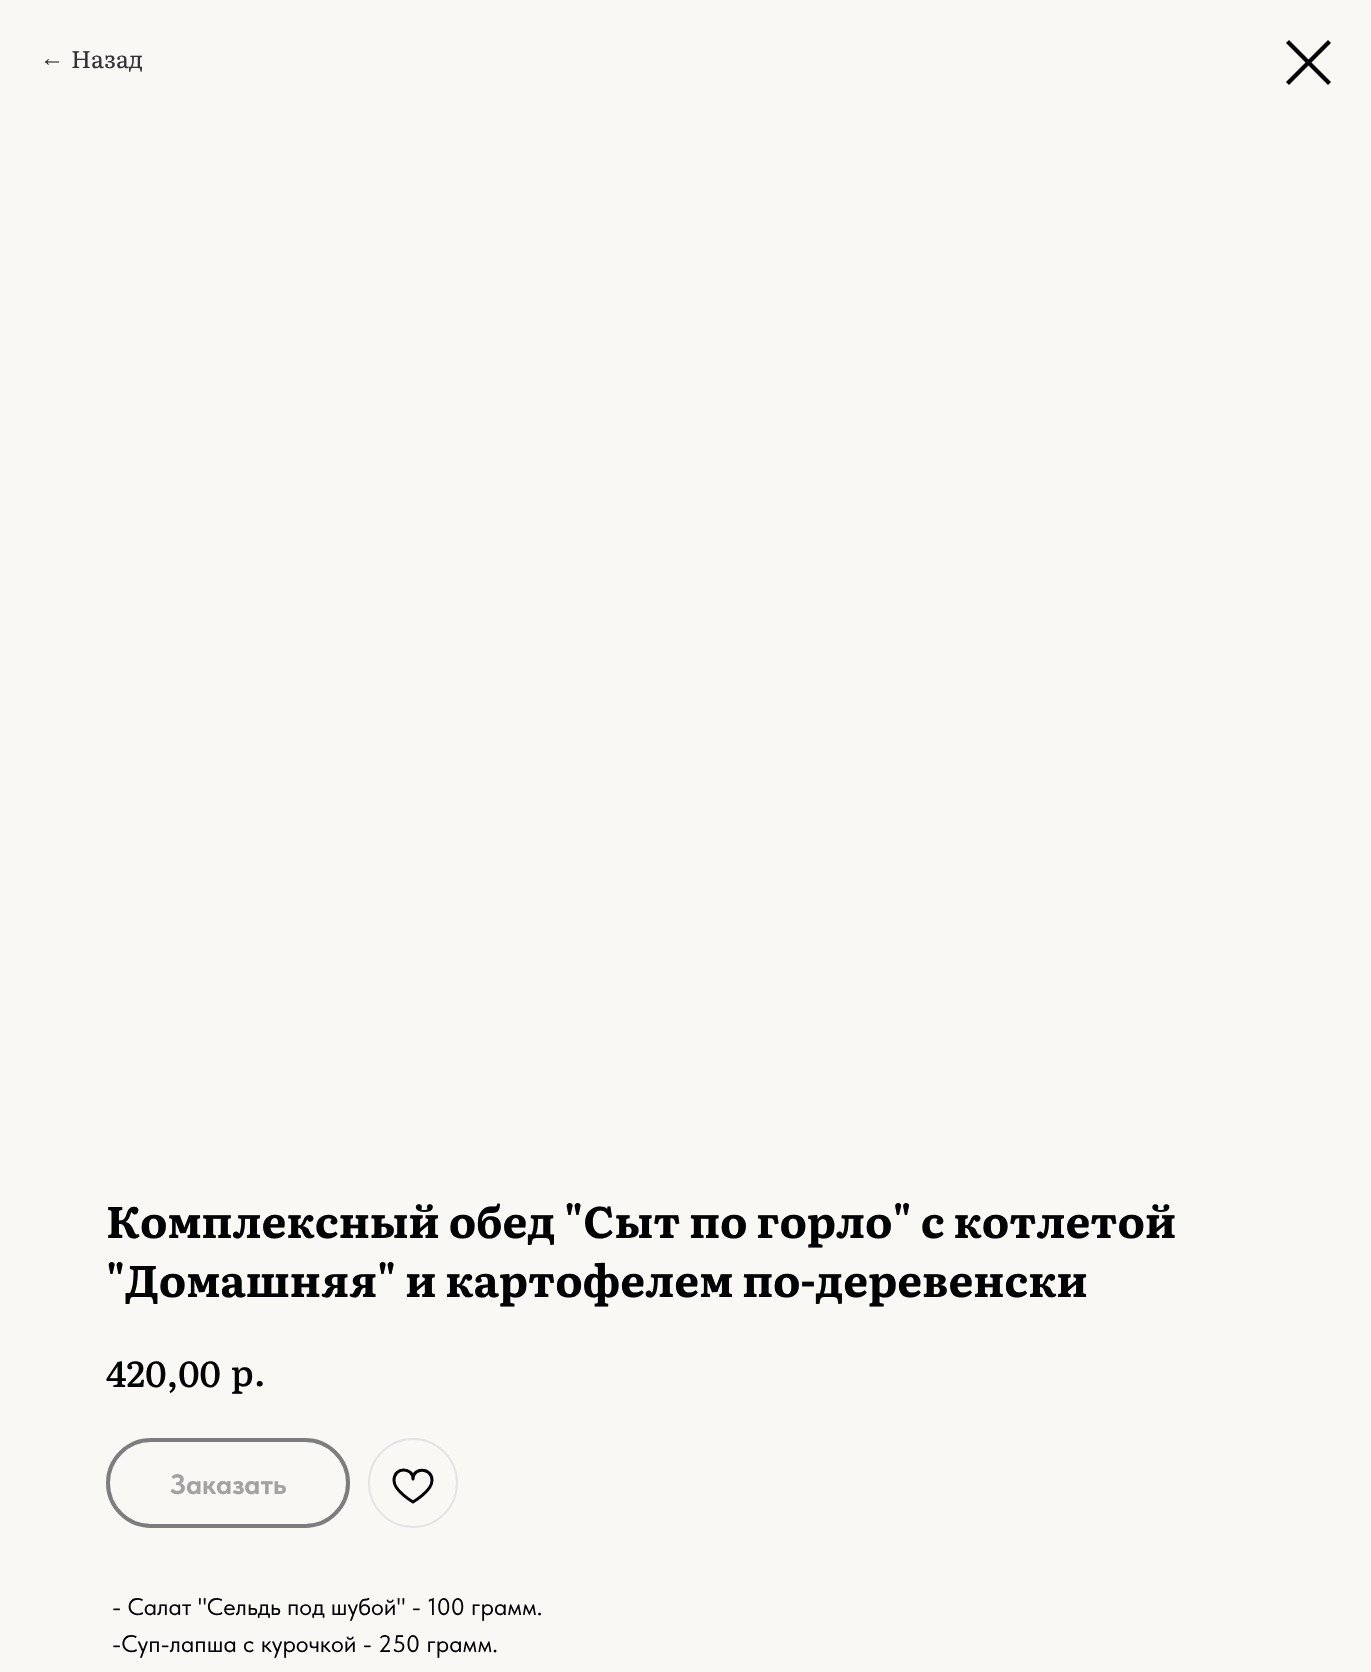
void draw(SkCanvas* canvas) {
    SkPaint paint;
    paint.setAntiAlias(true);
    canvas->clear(0xFFFAF8F5);
    SkFont font1(fontMgr->matchFamilyStyle("Liberation Sans", SkFontStyle::Normal()), 24);
    font1.setSubpixel(true);
    paint.setColor(0xFF343334);
    canvas->drawString("←", 40, 66, font1, paint);
    SkFont font2(fontMgr->matchFamilyStyle("Literata", SkFontStyle::Normal()), 24);
    font2.setSubpixel(true);
    canvas->drawString("Назад", 71, 68, font2, paint);
    paint.setColor(0xFF020204);
    canvas->drawPath(SkPathBuilder(SkPathFillType::kEvenOdd).moveTo(1286, 43).lineTo(1289, 40).lineTo(1331, 82).lineTo(1328, 85).close().detach(), paint);
    canvas->drawPath(SkPathBuilder(SkPathFillType::kEvenOdd).moveTo(1328, 40).lineTo(1331, 43).lineTo(1289, 85).lineTo(1286, 82).close().detach(), paint);
    SkFont font3(fontMgr->matchFamilyStyle("Literata", SkFontStyle::Bold()), 44);
    font3.setSubpixel(true);
    canvas->drawString("Комплексный обед \"Сыт по горло\" с котлетой", 106, 1238, font3, paint);
    canvas->drawString("\"Домашняя\" и картофелем по-деревенски", 106, 1297, font3, paint);
    SkFont font4(fontMgr->matchFamilyStyle("Literata", SkFontStyle(500, SkFontStyle::kNormal_Width, SkFontStyle::kUpright_Slant)), 36);
    font4.setSubpixel(true);
    canvas->drawString("420,00", 106, 1387, font4, paint);
    canvas->drawString("р.", 231, 1386, font4, paint);
    paint.setStyle(SkPaint::kStroke_Style);
    paint.setStrokeWidth(4);
    paint.setColor(0xFF7E7D7D);
    canvas->drawRoundRect(SkRect::MakeXYWH(108, 1440, 240, 86), 43, 43, paint);
    SkFont font5(fontMgr->matchFamilyStyle("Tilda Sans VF", SkFontStyle::Bold()), 28);
    font5.setSubpixel(true);
    paint.setStyle(SkPaint::kFill_Style);
    paint.setColor(0xFFA3A2A1);
    canvas->drawString("Заказать", 170, 1494, font5, paint);
    paint.setStyle(SkPaint::kStroke_Style);
    paint.setStrokeWidth(2);
    paint.setColor(0xFFE4E4E4);
    canvas->drawCircle(413, 1483, 44, paint);
    paint.setStrokeWidth(3);
    paint.setStrokeJoin(SkPaint::kRound_Join);
    paint.setColor(0xFF000000);
    canvas->drawPath(SkPathBuilder().moveTo(432, 1480.5f).cubicTo(432, 1491, 413, 1502, 413, 1502).cubicTo(413, 1502, 394, 1491, 394, 1480.5f).cubicTo(394, 1466.5f, 413, 1467, 413, 1479).cubicTo(413, 1467, 432, 1467, 432, 1480.5f).close().detach(), paint);
    SkFont font6(fontMgr->matchFamilyStyle("Tilda Sans VF", SkFontStyle::Normal()), 24);
    font6.setSubpixel(true);
    paint.setStyle(SkPaint::kFill_Style);
    paint.setColor(0xFF020204);
    canvas->drawString("- Салат \"Сельдь под шубой\" - 100 грамм.", 112, 1615, font6, paint);
    canvas->drawString("-Суп-лапша с курочкой - 250 грамм.", 112, 1652, font6, paint);
}
